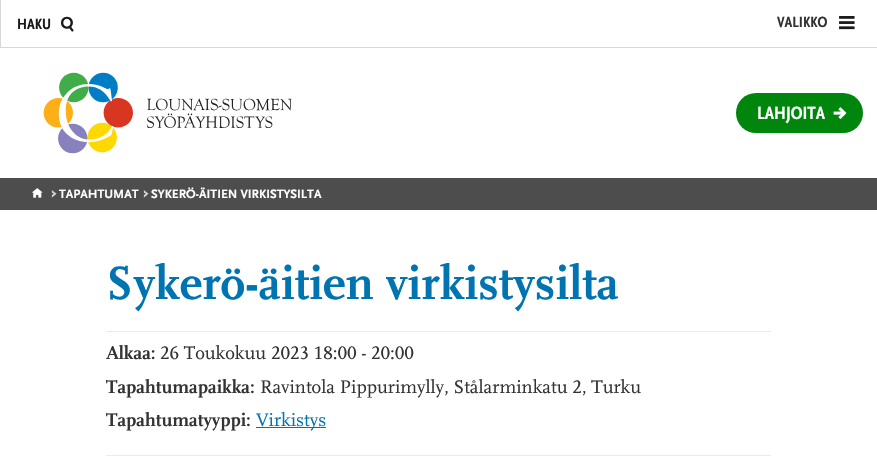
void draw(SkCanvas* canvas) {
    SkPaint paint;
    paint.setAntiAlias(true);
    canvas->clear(0xFFFFFFFF);
    paint.setColor(0xFFD8D8D8);
    canvas->drawRect(SkRect::MakeXYWH(0, 47, 877, 1), paint);
    canvas->drawRect(SkRect::MakeXYWH(0, 0, 1, 47), paint);
    SkFont font1(fontMgr->matchFamilyStyle("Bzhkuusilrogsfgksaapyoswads", SkFontStyle::Bold()), 15.5f);
    font1.setSubpixel(true);
    paint.setColor(0xFF1A1A1A);
    canvas->drawString("HAKU", 17, 29, font1, paint);
    SkFont font2(fontMgr->matchFamilyStyle("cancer", SkFontStyle::Normal()), 24);
    font2.setSubpixel(true);
    canvas->drawString("↳", 55, 34, font2, paint);
    paint.setColor(0xFF00860C);
    canvas->drawRoundRect(SkRect::MakeXYWH(736, 93, 127, 40), 20, 20, paint);
    SkFont font3(fontMgr->matchFamilyStyle("Bzhkuusilrogsfgksaapyoswads", SkFontStyle::Bold()), 18.5f);
    font3.setSubpixel(true);
    paint.setColor(0xFFFFFFFF);
    canvas->drawString("LAHJOITA", 757, 119, font3, paint);
    SkFont font4(fontMgr->matchFamilyStyle("cancer", SkFontStyle::Normal()), 18.5f);
    font4.setSubpixel(true);
    canvas->drawString("➜", 831, 121, font4, paint);
    canvas->drawImageRect(SkImages::DeferredFromEncodedData(SkData::MakeFromFileName("img1.png")), SkRect::MakeXYWH(43, 72, 249, 82), SkSamplingOptions());
    paint.setColor(0xFF333333);
    canvas->drawString("VALIKKO", 777, 27, font1, paint);
    canvas->drawImageRect(SkImages::DeferredFromEncodedData(SkData::MakeFromFileName("img2.png")), SkRect::MakeXYWH(839, 16, 16, 14), SkSamplingOptions());
    paint.setColor(0xFF4D4D4D);
    canvas->drawRect(SkRect::MakeXYWH(0, 178, 877, 32), paint);
    paint.setColor(0xFFFFFFFF);
    canvas->drawString("⇧", 28, 201, font4, paint);
    SkFont font5(fontMgr->matchFamilyStyle("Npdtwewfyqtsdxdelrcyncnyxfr", SkFontStyle::Bold()), 18.5f);
    font5.setSubpixel(true);
    paint.setColor(0xFFD3D3D3);
    canvas->drawString("›", 51, 198, font5, paint);
    SkFont font6(fontMgr->matchFamilyStyle("Npdtwewfyqtsdxdelrcyncnyxfr", SkFontStyle::Bold()), 12.6f);
    font6.setSubpixel(true);
    paint.setColor(0xFFFFFFFF);
    canvas->drawString("TAPAHTUMAT", 59, 198, font6, paint);
    paint.setColor(0xFFD3D3D3);
    canvas->drawString("›", 143, 198, font5, paint);
    paint.setColor(0xFFFFFFFF);
    canvas->drawString("SYKERÖ-ÄITIEN VIRKISTYSILTA", 151, 198, font6, paint);
    SkFont font7(fontMgr->matchFamilyStyle("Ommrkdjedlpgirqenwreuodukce", SkFontStyle::Bold()), 48.75f);
    font7.setSubpixel(true);
    paint.setColor(0xFF0074B0);
    canvas->drawString("Sykerö-äitien virkistysilta", 106, 299, font7, paint);
    paint.setColor(0xFFEBEBEB);
    canvas->drawRect(SkRect::MakeXYWH(106, 331, 665, 1), paint);
    SkFont font8(fontMgr->matchFamilyStyle("Ommrkdjedlpgirqenwreuodukce", SkFontStyle::Bold()), 19);
    font8.setSubpixel(true);
    paint.setColor(0xFF333333);
    canvas->drawString("Alkaa:", 106, 359, font8, paint);
    SkFont font9(fontMgr->matchFamilyStyle("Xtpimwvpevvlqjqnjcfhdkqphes", SkFontStyle::Normal()), 19);
    font9.setSubpixel(true);
    canvas->drawString("26 Toukokuu 2023 18:00 - 20:00", 160, 359, font9, paint);
    canvas->drawString("Tapahtumapaikka:", 106, 393, font8, paint);
    canvas->drawString("Ravintola Pippurimylly, Stålarminkatu 2, Turku", 260, 393, font9, paint);
    canvas->drawString("Tapahtumatyyppi:", 106, 426, font8, paint);
    paint.setColor(0xFF0074B0);
    canvas->drawRect(SkRect::MakeXYWH(256, 427, 70, 1), paint);
    canvas->drawString("Virkistys", 256, 426, font9, paint);
    paint.setColor(0xFFEBEBEB);
    canvas->drawRect(SkRect::MakeXYWH(106, 455, 665, 1), paint);
}
